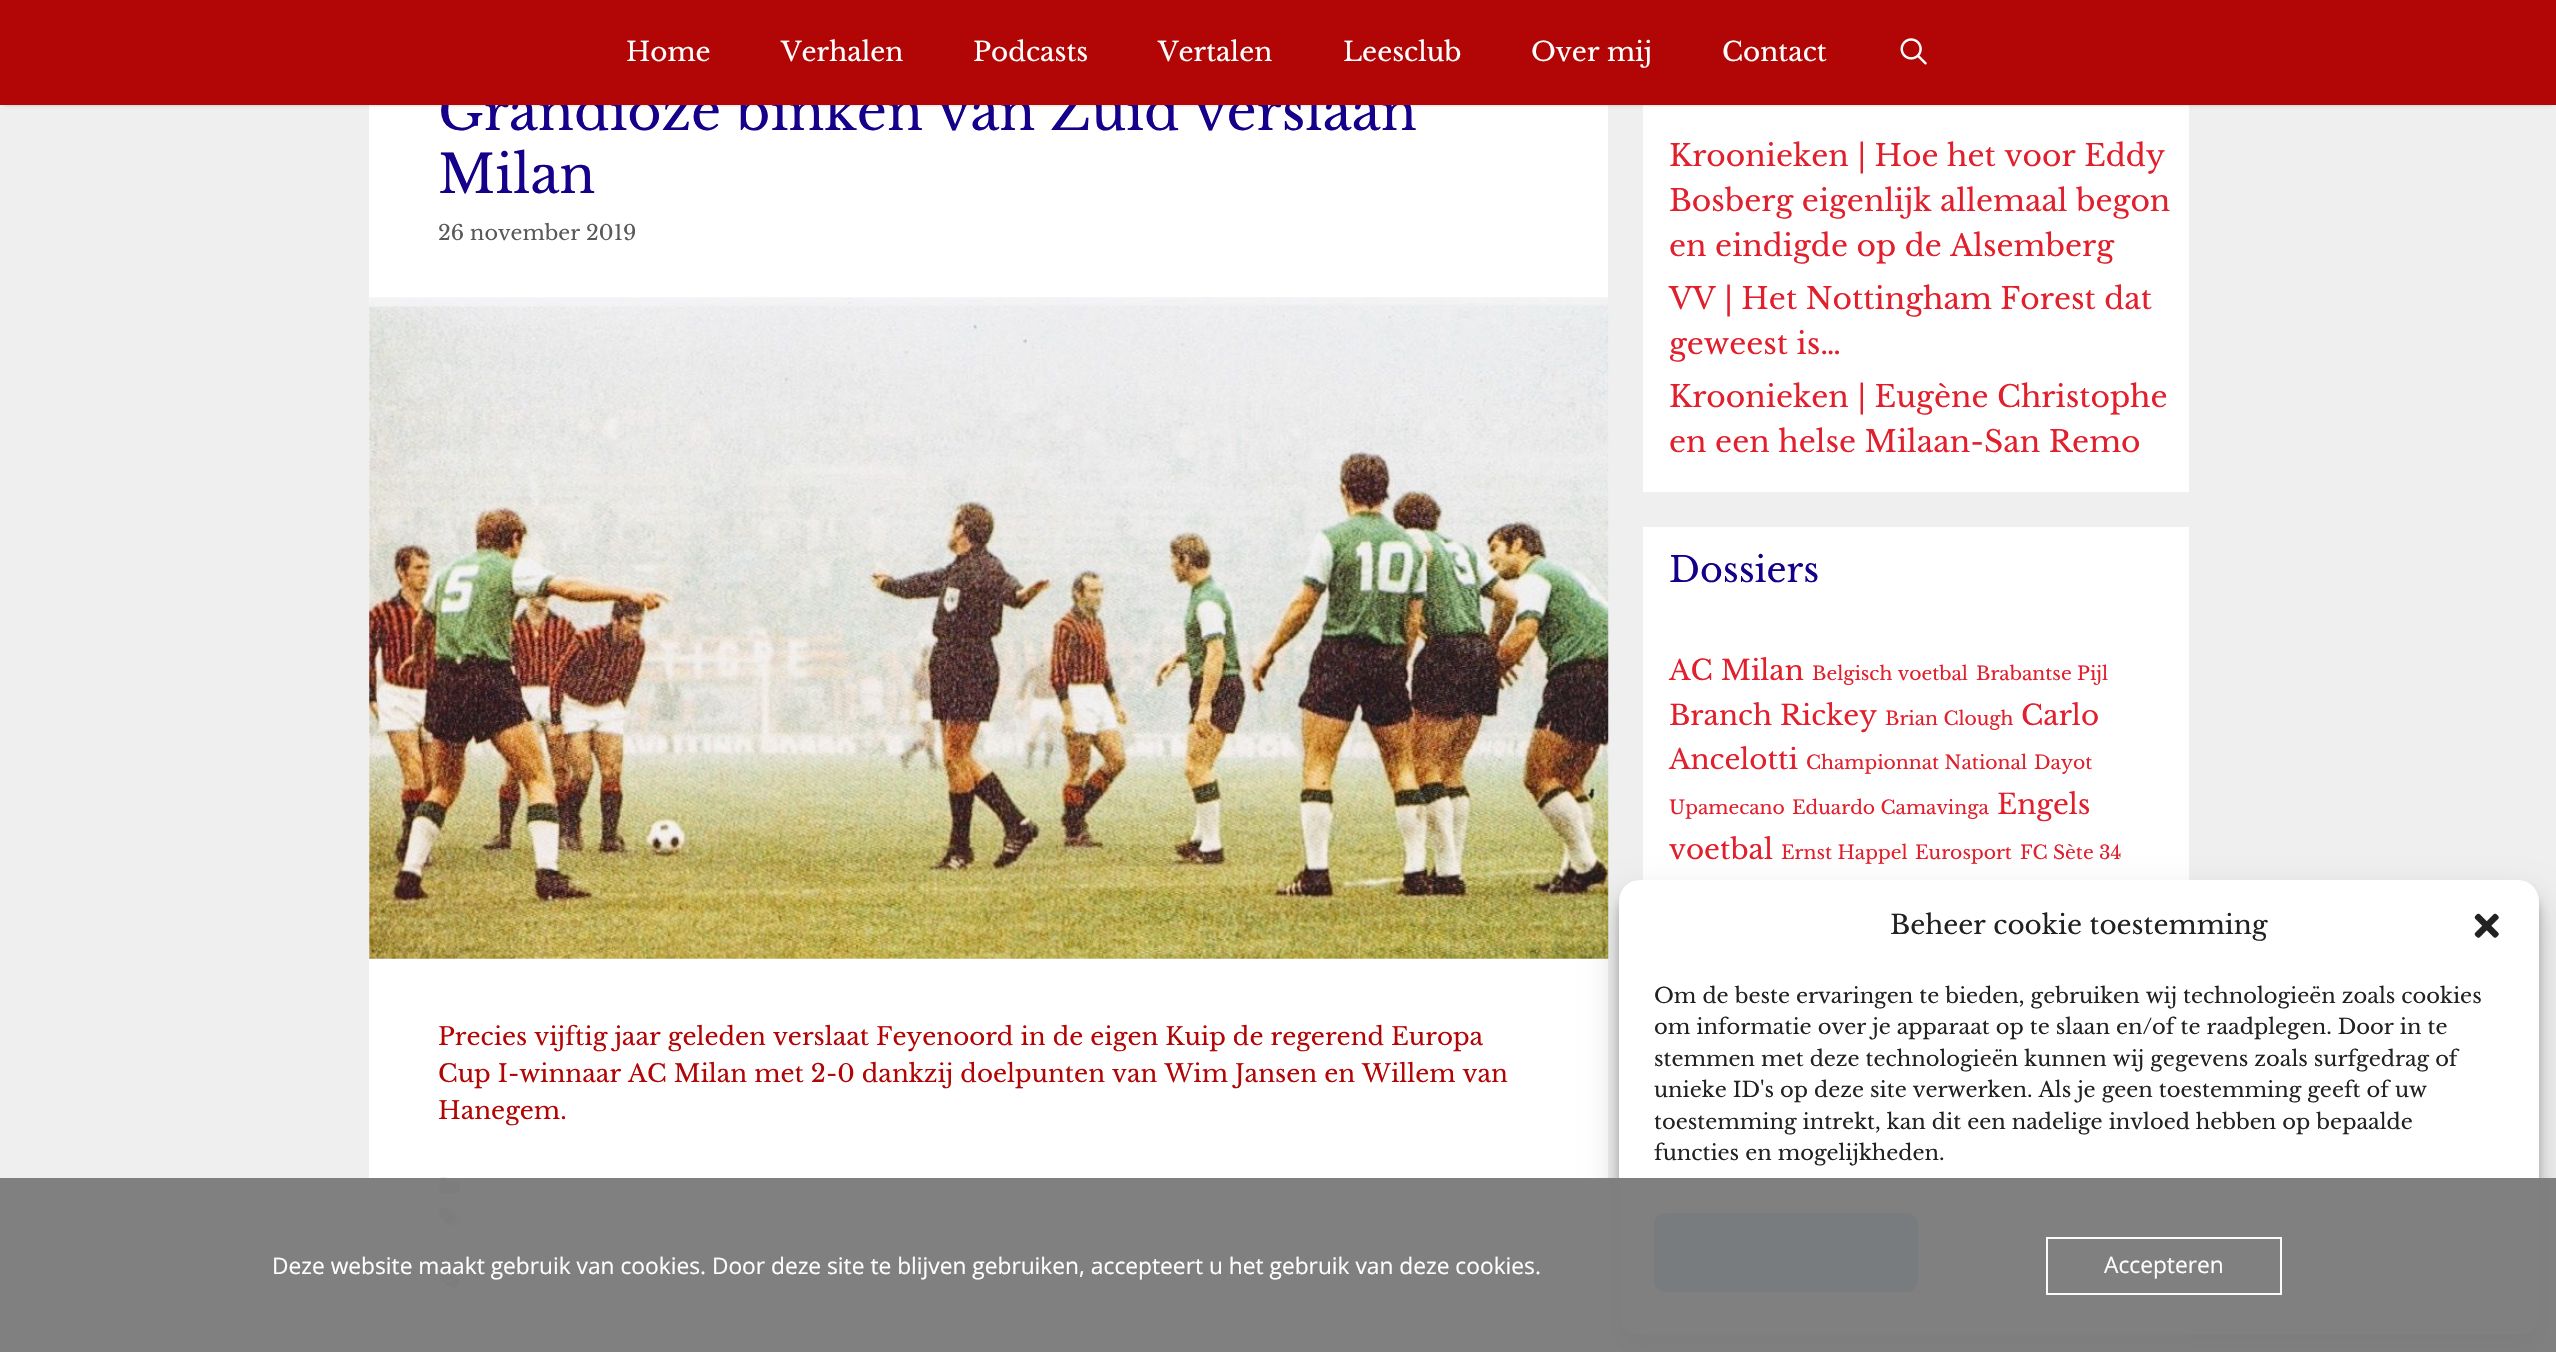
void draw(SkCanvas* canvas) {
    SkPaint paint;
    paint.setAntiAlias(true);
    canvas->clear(0xFFEFEFEF);
    paint.setColor(0xFFFFFFFF);
    canvas->drawRect(SkRect::MakeXYWH(369, 105, 1239, 1247), paint);
    canvas->drawRect(SkRect::MakeXYWH(1643, 105, 546, 387), paint);
    paint.setColor(0x33000000);
    paint.setMaskFilter(SkMaskFilter::MakeBlur(kNormal_SkBlurStyle, 2));
    canvas->drawRect(SkRect::MakeXYWH(4, 7, 2549, 98), paint);
    paint.setMaskFilter(nullptr);
    SkFont font1(fontMgr->matchFamilyStyle("Libre Baskerville", SkFontStyle::Normal()), 52.5f);
    font1.setSubpixel(true);
    paint.setColor(0xFF140089);
    canvas->drawString("Grandioze binken van Zuid verslaan", 438, 130, font1, paint);
    paint.setColor(0xFFB20505);
    canvas->drawRect(SkRect::MakeXYWH(0, 0, 2556, 105), paint);
    SkFont font2(fontMgr->matchFamilyStyle("Libre Baskerville", SkFontStyle::Normal()), 26.25f);
    font2.setSubpixel(true);
    paint.setColor(0xFFFFFFFF);
    canvas->drawString("Home", 626, 61, font2, paint);
    canvas->drawString("Verhalen", 781, 61, font2, paint);
    canvas->drawString("Podcasts", 973, 61, font2, paint);
    canvas->drawString("Vertalen", 1158, 61, font2, paint);
    canvas->drawString("Leesclub", 1343, 61, font2, paint);
    canvas->drawString("Over mij", 1531, 61, font2, paint);
    canvas->drawString("Contact", 1722, 61, font2, paint);
    canvas->drawImageRect(SkImages::DeferredFromEncodedData(SkData::MakeFromFileName("img1.png")), SkRect::MakeXYWH(1900, 38, 27, 27), SkSamplingOptions());
    paint.setColor(0xFF140089);
    canvas->drawString("Milan", 438, 193, font1, paint);
    SkFont font3(fontMgr->matchFamilyStyle("Libre Baskerville", SkFontStyle::Normal()), 20.75f);
    font3.setSubpixel(true);
    paint.setColor(0xFF595959);
    canvas->drawString("26 november 2019", 438, 240, font3, paint);
    canvas->drawImageRect(SkImages::DeferredFromEncodedData(SkData::MakeFromFileName("img2.png")), SkRect::MakeXYWH(369, 297, 1240, 662), SkSamplingOptions());
    SkFont font4(fontMgr->matchFamilyStyle("Libre Baskerville", SkFontStyle::Normal()), 24.5f);
    font4.setSubpixel(true);
    paint.setColor(0xFFB20505);
    canvas->drawString("Precies vijftig jaar geleden verslaat Feyenoord in de eigen Kuip de regerend Europa", 438, 1045, font4, paint);
    canvas->drawString("Cup I-winnaar AC Milan met 2-0 dankzij doelpunten van Wim Jansen en Willem van", 438, 1082, font4, paint);
    canvas->drawString("Hanegem.", 438, 1119, font4, paint);
    canvas->drawImageRect(SkImages::DeferredFromEncodedData(SkData::MakeFromFileName("img3.png")), SkRect::MakeXYWH(439, 1177, 22, 17), SkSamplingOptions());
    canvas->drawImageRect(SkImages::DeferredFromEncodedData(SkData::MakeFromFileName("img4.png")), SkRect::MakeXYWH(439, 1208, 21, 18), SkSamplingOptions());
    canvas->drawImageRect(SkImages::DeferredFromEncodedData(SkData::MakeFromFileName("img5.png")), SkRect::MakeXYWH(439, 1270, 21, 21), SkSamplingOptions());
    SkFont font5(fontMgr->matchFamilyStyle("Libre Baskerville", SkFontStyle::Normal()), 29.75f);
    font5.setSubpixel(true);
    paint.setColor(0xFFE21F2C);
    canvas->drawString("Kroonieken | Hoe het voor Eddy", 1669, 166, font5, paint);
    canvas->drawString("Bosberg eigenlijk allemaal begon", 1669, 211, font5, paint);
    canvas->drawString("en eindigde op de Alsemberg", 1669, 256, font5, paint);
    canvas->drawString("VV | Het Nottingham Forest dat", 1669, 309, font5, paint);
    canvas->drawString("geweest is…", 1669, 354, font5, paint);
    canvas->drawString("Kroonieken | Eugène Christophe", 1669, 407, font5, paint);
    canvas->drawString("en een helse Milaan-San Remo", 1669, 452, font5, paint);
    paint.setColor(0xFFFFFFFF);
    canvas->drawRect(SkRect::MakeXYWH(1643, 527, 546, 825), paint);
    SkFont font6(fontMgr->matchFamilyStyle("Libre Baskerville", SkFontStyle::Normal()), 35);
    font6.setSubpixel(true);
    paint.setColor(0xFF140089);
    canvas->drawString("Dossiers", 1669, 582, font6, paint);
    SkFont font7(fontMgr->matchFamilyStyle("Libre Baskerville", SkFontStyle::Normal()), 27.75f);
    font7.setSubpixel(true);
    paint.setColor(0xFFE21F2C);
    canvas->drawString("AC Milan", 1669, 680, font7, paint);
    SkFont font8(fontMgr->matchFamilyStyle("Libre Baskerville", SkFontStyle::Normal()), 18.75f);
    font8.setSubpixel(true);
    canvas->drawString("Belgisch voetbal", 1812, 680, font8, paint);
    canvas->drawString("Brabantse Pijl", 1976, 680, font8, paint);
    canvas->drawString("Branch Rickey", 1669, 725, font7, paint);
    canvas->drawString("Brian Clough", 1885, 725, font8, paint);
    canvas->drawString("Carlo", 2021, 725, font7, paint);
    canvas->drawString("Ancelotti", 1669, 769, font7, paint);
    canvas->drawString("Championnat National", 1806, 769, font8, paint);
    canvas->drawString("Dayot", 2034, 769, font8, paint);
    canvas->drawString("Upamecano", 1669, 814, font8, paint);
    canvas->drawString("Eduardo Camavinga", 1792, 814, font8, paint);
    canvas->drawString("Engels", 1997, 814, font7, paint);
    canvas->drawString("voetbal", 1669, 859, font7, paint);
    canvas->drawString("Ernst Happel", 1781, 859, font8, paint);
    canvas->drawString("Eurosport", 1915, 859, font8, paint);
    canvas->drawString("FC Sète 34", 2020, 859, font8, paint);
    paint.setColor(0x3B000000);
    paint.setMaskFilter(SkMaskFilter::MakeBlur(kNormal_SkBlurStyle, 5));
    canvas->drawRoundRect(SkRect::MakeXYWH(1619, 891, 920, 455), 21, 21, paint);
    paint.setMaskFilter(nullptr);
    paint.setColor(0x30000000);
    paint.setMaskFilter(SkMaskFilter::MakeBlur(kNormal_SkBlurStyle, 17.5f));
    canvas->drawRoundRect(SkRect::MakeXYWH(1619, 898, 920, 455), 21, 21, paint);
    paint.setMaskFilter(nullptr);
    paint.setColor(0xFFFFFFFF);
    canvas->drawRoundRect(SkRect::MakeXYWH(1619, 880, 920, 455), 21, 21, paint);
    paint.setColor(0xFF222222);
    canvas->drawString("Beheer cookie toestemming", 1890, 934, font2, paint);
    canvas->drawImageRect(SkImages::DeferredFromEncodedData(SkData::MakeFromFileName("img6.png")), SkRect::MakeXYWH(2474, 913, 25, 25), SkSamplingOptions());
    SkFont font9(fontMgr->matchFamilyStyle("Libre Baskerville", SkFontStyle::Normal()), 21);
    font9.setSubpixel(true);
    canvas->drawString("Om de beste ervaringen te bieden, gebruiken wij technologieën zoals cookies", 1654, 1003, font9, paint);
    canvas->drawString("om informatie over je apparaat op te slaan en/of te raadplegen. Door in te", 1654, 1034, font9, paint);
    canvas->drawString("stemmen met deze technologieën kunnen wij gegevens zoals surfgedrag of", 1654, 1066, font9, paint);
    canvas->drawString("unieke ID's op deze site verwerken. Als je geen toestemming geeft of uw", 1654, 1097, font9, paint);
    canvas->drawString("toestemming intrekt, kan dit een nadelige invloed hebben op bepaalde", 1654, 1129, font9, paint);
    canvas->drawString("functies en mogelijkheden.", 1654, 1160, font9, paint);
    paint.setColor(0xFF1E73BE);
    canvas->drawRoundRect(SkRect::MakeXYWH(1655, 1214, 262, 77), 10, 10, paint);
    paint.setStyle(SkPaint::kStroke_Style);
    paint.setStrokeWidth(2);
    canvas->drawRoundRect(SkRect::MakeXYWH(1655, 1214, 262, 77), 10, 10, paint);
    paint.setStyle(SkPaint::kFill_Style);
    paint.setColor(0xFFF9F9F9);
    canvas->drawRoundRect(SkRect::MakeXYWH(1937, 1214, 262, 77), 10, 10, paint);
    paint.setStyle(SkPaint::kStroke_Style);
    paint.setColor(0xFFF2F2F2);
    canvas->drawRoundRect(SkRect::MakeXYWH(1937, 1214, 262, 77), 10, 10, paint);
    paint.setStyle(SkPaint::kFill_Style);
    paint.setColor(0xFFF9F9F9);
    canvas->drawRoundRect(SkRect::MakeXYWH(2218, 1214, 285, 77), 10, 10, paint);
    paint.setStyle(SkPaint::kStroke_Style);
    paint.setColor(0xFFF2F2F2);
    canvas->drawRoundRect(SkRect::MakeXYWH(2218, 1214, 285, 77), 10, 10, paint);
    paint.setStyle(SkPaint::kFill_Style);
    paint.setColor(0xF77C7C7C);
    canvas->drawRect(SkRect::MakeXYWH(0, 1178, 2556, 174), paint);
    SkFont font10(fontMgr->matchFamilyStyle("Open Sans", SkFontStyle::Normal()), 22.75f);
    font10.setSubpixel(true);
    paint.setColor(0xFFFFFFFF);
    canvas->drawString("Deze website maakt gebruik van cookies. Door deze site te blijven gebruiken, accepteert u het gebruik van deze cookies.", 272, 1274, font10, paint);
    paint.setStyle(SkPaint::kStroke_Style);
    paint.setColor(0xF7FFFFFF);
    canvas->drawRect(SkRect::MakeXYWH(2047, 1238, 234, 56), paint);
    paint.setStyle(SkPaint::kFill_Style);
    paint.setColor(0xFFFFFFFF);
    canvas->drawString("Accepteren", 2104, 1273, font10, paint);
}
